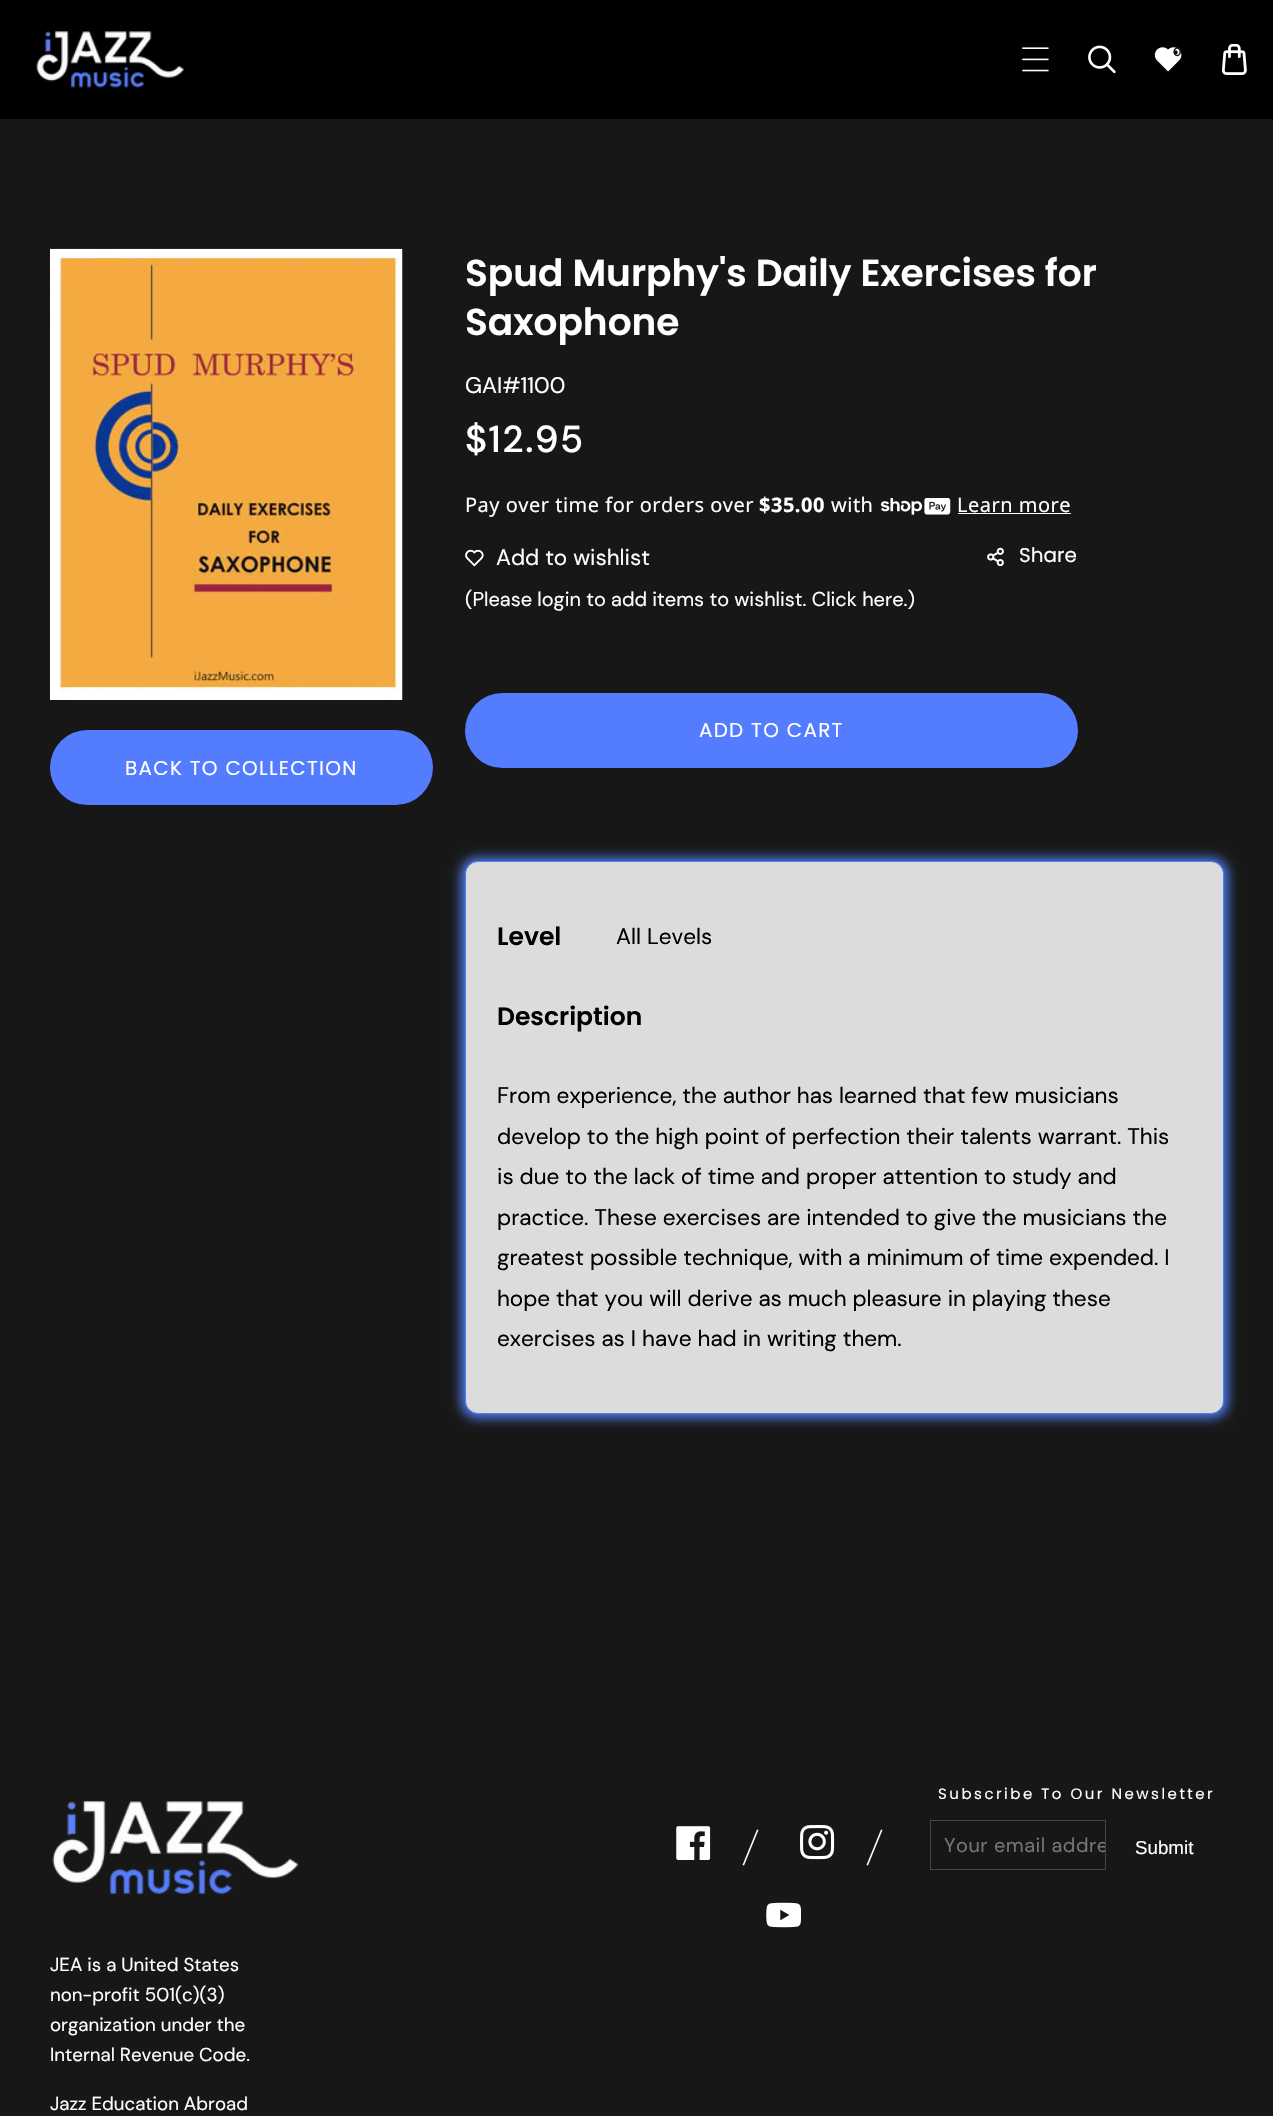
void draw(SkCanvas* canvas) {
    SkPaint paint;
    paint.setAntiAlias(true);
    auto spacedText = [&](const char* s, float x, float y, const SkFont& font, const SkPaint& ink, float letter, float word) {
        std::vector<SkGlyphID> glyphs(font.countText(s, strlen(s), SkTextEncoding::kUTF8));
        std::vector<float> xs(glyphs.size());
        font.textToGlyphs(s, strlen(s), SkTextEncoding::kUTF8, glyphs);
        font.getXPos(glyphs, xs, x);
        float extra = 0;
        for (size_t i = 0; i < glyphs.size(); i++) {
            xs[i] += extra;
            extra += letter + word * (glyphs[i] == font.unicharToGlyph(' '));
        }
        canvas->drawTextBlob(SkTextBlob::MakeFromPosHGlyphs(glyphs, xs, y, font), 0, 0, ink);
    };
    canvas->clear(0xFF171717);
    paint.setColor(0xFF000000);
    canvas->drawRect(SkRect::MakeXYWH(0, 0, 1273, 119), paint);
    canvas->drawImageRect(SkImages::DeferredFromEncodedData(SkData::MakeFromFileName("img1.png")), SkRect::MakeXYWH(36, 31, 148, 57), SkSamplingOptions());
    canvas->drawImageRect(SkImages::DeferredFromEncodedData(SkData::MakeFromFileName("img2.png")), SkRect::MakeXYWH(1022, 47, 27, 25), SkSamplingOptions());
    canvas->drawImageRect(SkImages::DeferredFromEncodedData(SkData::MakeFromFileName("img3.png")), SkRect::MakeXYWH(1088, 45, 28, 29), SkSamplingOptions());
    canvas->drawImageRect(SkImages::DeferredFromEncodedData(SkData::MakeFromFileName("img4.png")), SkRect::MakeXYWH(1154, 47, 28, 25), SkSamplingOptions());
    SkFont font1(fontMgr->matchFamilyStyle("DM Sans", SkFontStyle(500, SkFontStyle::kNormal_Width, SkFontStyle::kUpright_Slant)), 12);
    font1.setSubpixel(true);
    paint.setColor(0xFF171717);
    canvas->drawString("0", 1173, 56, font1, paint);
    canvas->drawImageRect(SkImages::DeferredFromEncodedData(SkData::MakeFromFileName("img5.png")), SkRect::MakeXYWH(1221, 44, 26, 31), SkSamplingOptions());
    canvas->drawImageRect(SkImages::DeferredFromEncodedData(SkData::MakeFromFileName("img6.png")), SkRect::MakeXYWH(50, 248, 353, 452), SkSamplingOptions());
    paint.setColor(0xFF547CFF);
    canvas->drawRoundRect(SkRect::MakeXYWH(50, 730, 383, 75), 37.5f, 37.5f, paint);
    SkFont font2(fontMgr->matchFamilyStyle("Poppins", SkFontStyle::Normal()), 20);
    font2.setSubpixel(true);
    paint.setColor(0xFFFFFFFF);
    spacedText("BACK TO COLLECTION", 125, 775, font2, paint, 1.25f, 0);
    SkFont font3(fontMgr->matchFamilyStyle("Poppins", SkFontStyle(600, SkFontStyle::kNormal_Width, SkFontStyle::kUpright_Slant)), 37.5f);
    font3.setSubpixel(true);
    canvas->drawString("Spud Murphy's Daily Exercises for", 465, 286, font3, paint);
    canvas->drawString("Saxophone", 465, 335, font3, paint);
    SkFont font4(fontMgr->matchFamilyStyle("DM Sans", SkFontStyle::Normal()), 22.5f);
    font4.setSubpixel(true);
    canvas->drawString("GAI#1100", 465, 393, font4, paint);
    SkFont font5(fontMgr->matchFamilyStyle("DM Sans", SkFontStyle(500, SkFontStyle::kNormal_Width, SkFontStyle::kUpright_Slant)), 37.5f);
    font5.setSubpixel(true);
    spacedText("$12.95", 465, 452, font5, paint, 1.5f, 0);
    SkFont font6(fontMgr->matchFamilyStyle("Noto Sans", SkFontStyle::Normal()), 20);
    font6.setSubpixel(true);
    spacedText("Pay over time for orders over", 465, 512, font6, paint, 0.5f, 0);
    SkFont font7(fontMgr->matchFamilyStyle("Noto Sans", SkFontStyle::Bold()), 20);
    font7.setSubpixel(true);
    spacedText("$35.00", 759, 512, font7, paint, 0.5f, 0);
    spacedText("with", 831, 512, font6, paint, 0.5f, 0);
    canvas->drawImageRect(SkImages::DeferredFromEncodedData(SkData::MakeFromFileName("img7.png")), SkRect::MakeXYWH(881, 498, 70, 17), SkSamplingOptions());
    spacedText("Learn more", 957, 512, font6, paint, 0.5f, 0);
    canvas->drawRect(SkRect::MakeXYWH(958, 513, 113, 1), paint);
    canvas->drawImageRect(SkImages::DeferredFromEncodedData(SkData::MakeFromFileName("img8.png")), SkRect::MakeXYWH(465, 549, 19, 18), SkSamplingOptions());
    canvas->drawString("Add to wishlist", 496, 565, font4, paint);
    SkFont font8(fontMgr->matchFamilyStyle("DM Sans", SkFontStyle::Normal()), 20);
    font8.setSubpixel(true);
    canvas->drawString("(Please login to add items to wishlist. Click here.)", 465, 606, font8, paint);
    canvas->drawImageRect(SkImages::DeferredFromEncodedData(SkData::MakeFromFileName("img9.png")), SkRect::MakeXYWH(987, 547, 17, 19), SkSamplingOptions());
    canvas->drawString("Share", 1019, 562, font2, paint);
    paint.setColor(0xFF547CFF);
    canvas->drawRoundRect(SkRect::MakeXYWH(465, 693, 613, 75), 37.5f, 37.5f, paint);
    paint.setColor(0xFFFFFFFF);
    spacedText("ADD TO CART", 699, 737, font2, paint, 1.25f, 0);
    paint.setColor(0xFF517EF3);
    paint.setMaskFilter(SkMaskFilter::MakeBlur(kNormal_SkBlurStyle, 6));
    canvas->drawRoundRect(SkRect::MakeXYWH(461, 858, 767, 560), 16, 16, paint);
    paint.setMaskFilter(nullptr);
    paint.setColor(0xFFDCDCDC);
    canvas->drawRoundRect(SkRect::MakeXYWH(465.5f, 861.5f, 758, 552), 12.5f, 12.5f, paint);
    paint.setStyle(SkPaint::kStroke_Style);
    paint.setStrokeWidth(1);
    paint.setColor(0xFF517EF3);
    canvas->drawRoundRect(SkRect::MakeXYWH(465.5f, 861.5f, 758, 552), 12.5f, 12.5f, paint);
    SkFont font9(fontMgr->matchFamilyStyle("Poppins", SkFontStyle(600, SkFontStyle::kNormal_Width, SkFontStyle::kUpright_Slant)), 25);
    font9.setSubpixel(true);
    paint.setStyle(SkPaint::kFill_Style);
    paint.setColor(0xFF000000);
    canvas->drawString("Level", 497, 945, font9, paint);
    canvas->drawString("All Levels", 616, 944, font4, paint);
    canvas->drawString("Description", 497, 1025, font9, paint);
    canvas->drawString("From experience, the author has learned that few musicians", 497, 1103, font4, paint);
    canvas->drawString("develop to the high point of perfection their talents warrant. This", 497, 1144, font4, paint);
    canvas->drawString("is due to the lack of time and proper attention to study and", 497, 1184, font4, paint);
    canvas->drawString("practice. These exercises are intended to give the musicians the", 497, 1225, font4, paint);
    canvas->drawString("greatest possible technique, with a minimum of time expended. I", 497, 1265, font4, paint);
    canvas->drawString("hope that you will derive as much pleasure in playing these", 497, 1306, font4, paint);
    canvas->drawString("exercises as I have had in writing them.", 497, 1346, font4, paint);
    canvas->drawImageRect(SkImages::DeferredFromEncodedData(SkData::MakeFromFileName("img10.png")), SkRect::MakeXYWH(676, 1826, 35, 34), SkSamplingOptions());
    paint.setColor(0xFFFFFFFF);
    canvas->drawPath(SkPathBuilder().moveTo(757, 1829.5f).lineTo(758.5f, 1830).lineTo(744, 1865.5f).lineTo(742.5f, 1865).close().detach(), paint);
    canvas->drawImageRect(SkImages::DeferredFromEncodedData(SkData::MakeFromFileName("img11.png")), SkRect::MakeXYWH(800, 1825, 35, 35), SkSamplingOptions());
    canvas->drawPath(SkPathBuilder().moveTo(881, 1829.5f).lineTo(882.5f, 1830).lineTo(868, 1865.5f).lineTo(866.5f, 1865).close().detach(), paint);
    canvas->drawImageRect(SkImages::DeferredFromEncodedData(SkData::MakeFromFileName("img12.png")), SkRect::MakeXYWH(766, 1902, 35, 26), SkSamplingOptions());
    SkFont font10(fontMgr->matchFamilyStyle("Poppins", SkFontStyle::Normal()), 15);
    font10.setSubpixel(true);
    spacedText("Subscribe To Our Newsletter", 938, 1799, font10, paint, 2.5f, 0);
    paint.setStyle(SkPaint::kStroke_Style);
    paint.setColor(0xFF454545);
    canvas->drawRect(SkRect::MakeXYWH(930.5f, 1820.5f, 175, 49), paint);
    canvas->save();
    canvas->clipRect(SkRect::MakeXYWH(944, 1833, 161, 26));
    paint.setStyle(SkPaint::kFill_Style);
    paint.setColor(0xFF757575);
    spacedText("Your email addre", 944, 1852, font8, paint, 0.5f, 0);
    canvas->restore();
    SkFont font11(fontMgr->matchFamilyStyle("Liberation Sans", SkFontStyle::Normal()), 18.75f);
    font11.setSubpixel(true);
    paint.setColor(0xFFFFFFFF);
    canvas->drawString("Submit", 1135, 1854, font11, paint);
    canvas->drawImageRect(SkImages::DeferredFromEncodedData(SkData::MakeFromFileName("img13.png")), SkRect::MakeXYWH(52, 1801, 247, 94), SkSamplingOptions());
    SkFont font12(fontMgr->matchFamilyStyle("DM Sans", SkFontStyle::Normal()), 18.75f);
    font12.setSubpixel(true);
    canvas->drawString("JEA is a United States", 50, 1971, font12, paint);
    canvas->drawString("non-profit 501(c)(3)", 50, 2001, font12, paint);
    canvas->drawString("organization under the", 50, 2031, font12, paint);
    canvas->drawString("Internal Revenue Code.", 50, 2061, font12, paint);
    canvas->drawString("Jazz Education Abroad", 50, 2110, font12, paint);
}
